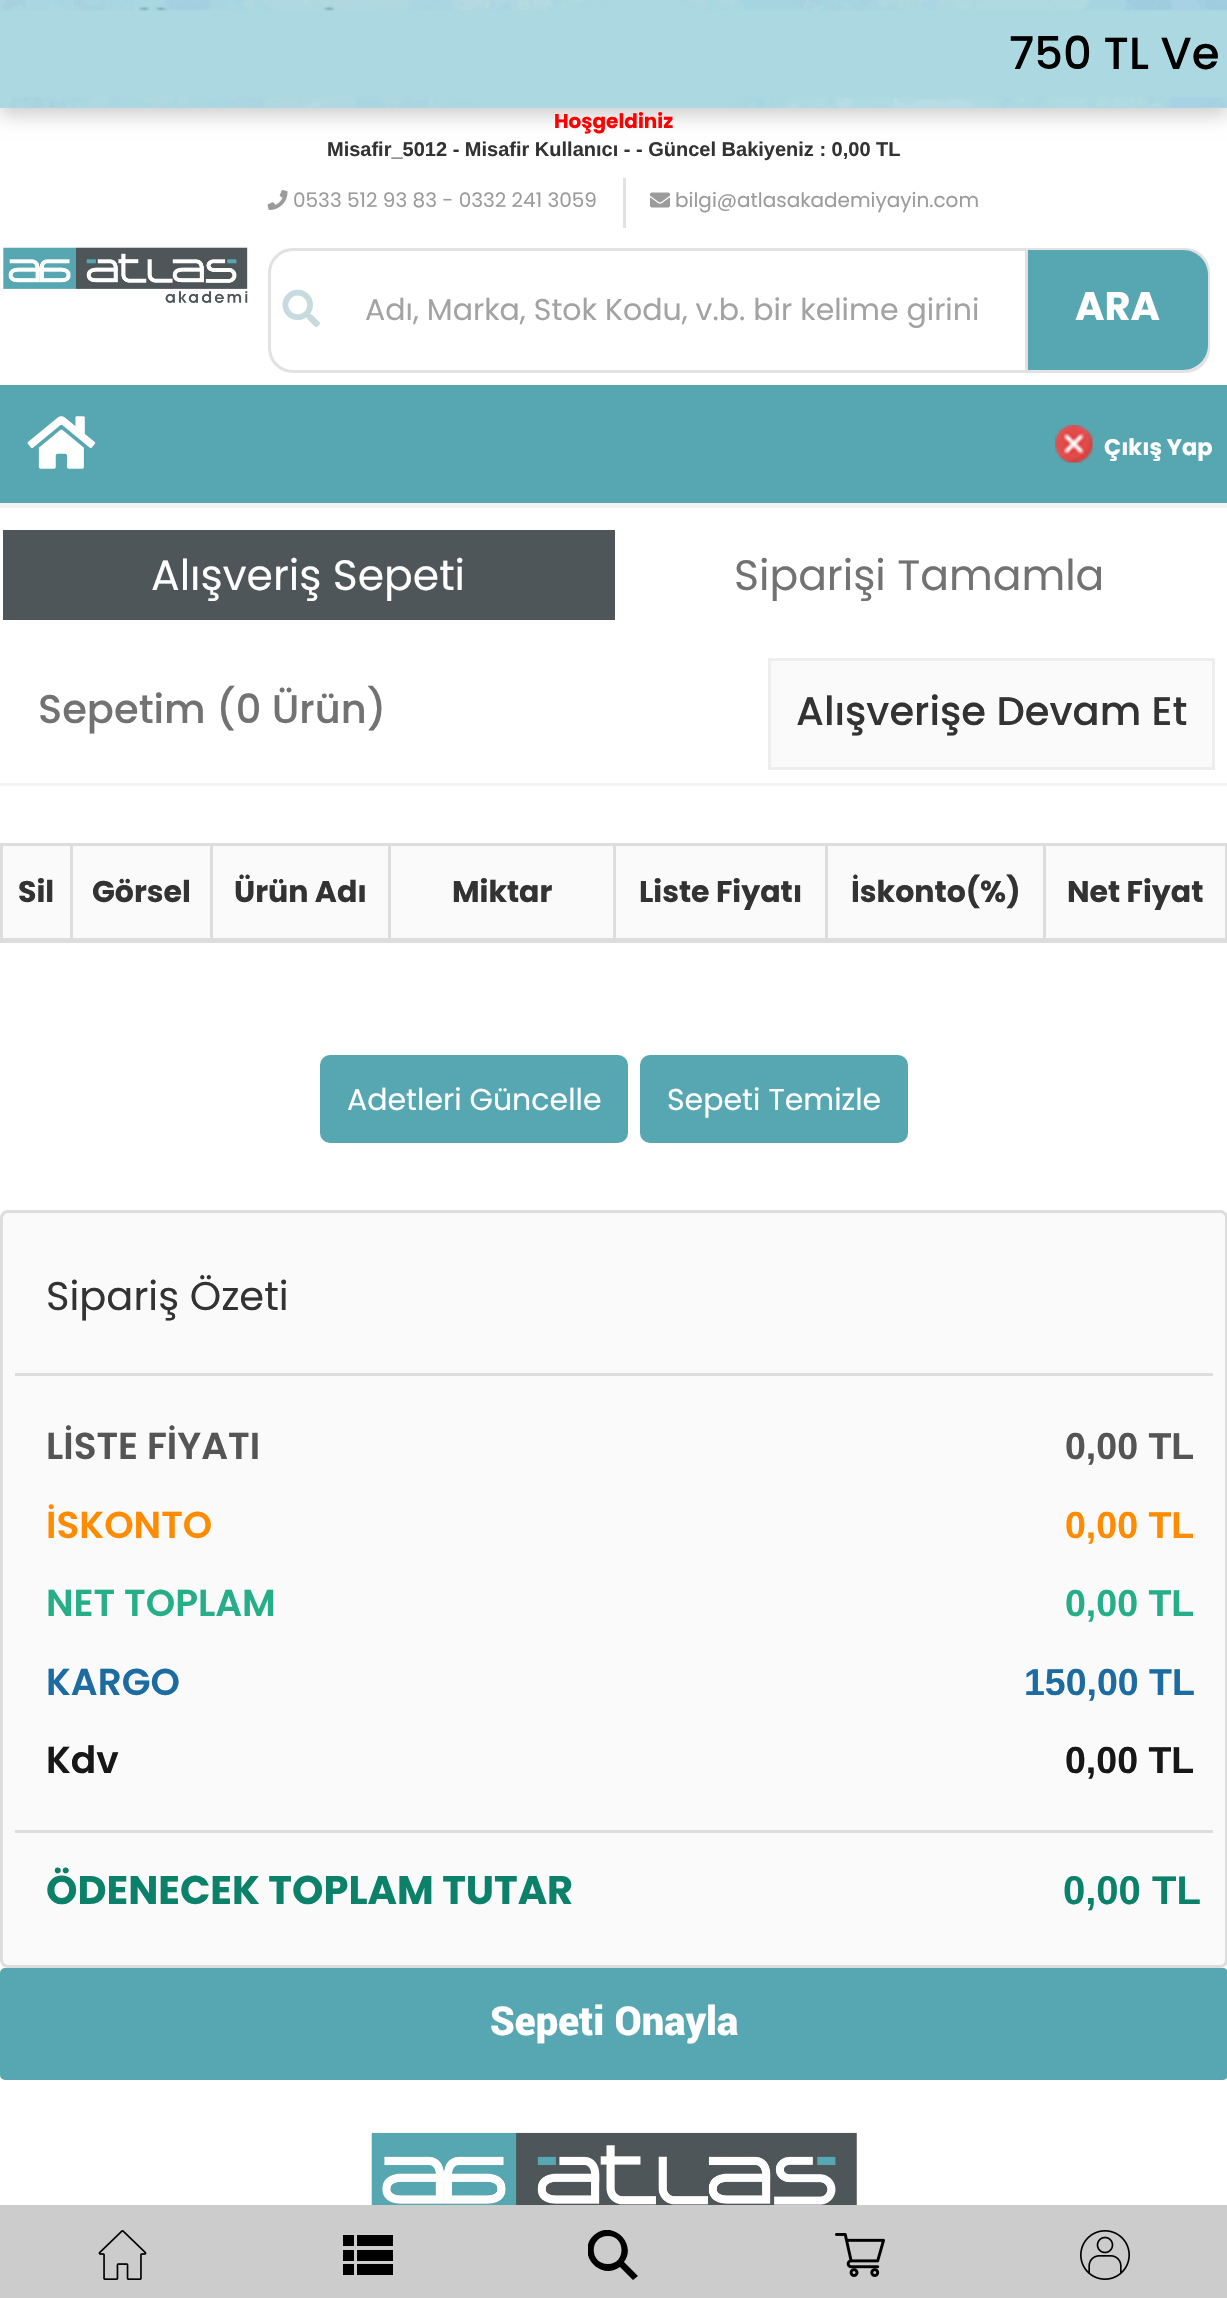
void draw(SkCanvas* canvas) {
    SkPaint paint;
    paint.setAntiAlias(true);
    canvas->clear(0xFFFFFFFF);
    paint.setColor(0xFFCCCCCC);
    paint.setMaskFilter(SkMaskFilter::MakeBlur(kNormal_SkBlurStyle, 9));
    canvas->drawRect(SkRect::MakeXYWH(0, 8, 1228, 107), paint);
    paint.setMaskFilter(nullptr);
    paint.setColor(0xFFB0D8E2);
    canvas->drawRect(SkRect::MakeXYWH(0, 107, 1227, 1), paint);
    canvas->drawImageRect(SkImages::DeferredFromEncodedData(SkData::MakeFromFileName("img1.png")), SkRect::MakeXYWH(0, 0, 1227, 108), SkSamplingOptions());
    SkFont font1(fontMgr->matchFamilyStyle("Poppins", SkFontStyle(500, SkFontStyle::kNormal_Width, SkFontStyle::kUpright_Slant)), 45);
    font1.setSubpixel(true);
    paint.setColor(0xFF000000);
    canvas->drawString("750 TL Ve", 1009, 69, font1, paint);
    SkFont font2(fontMgr->matchFamilyStyle("Poppins", SkFontStyle::Bold()), 20);
    font2.setSubpixel(true);
    paint.setColor(0xFFFF0000);
    canvas->drawString("Hoşgeldiniz", 554, 128, font2, paint);
    SkFont font3(fontMgr->matchFamilyStyle("Liberation Sans", SkFontStyle::Bold()), 20);
    font3.setSubpixel(true);
    paint.setColor(0xFF333333);
    canvas->drawString("Misafir_5012 - Misafir Kullanıcı - - Güncel Bakiyeniz : 0,00 TL", 327, 156, font3, paint);
    canvas->drawImageRect(SkImages::DeferredFromEncodedData(SkData::MakeFromFileName("img2.png")), SkRect::MakeXYWH(3, 247, 245, 56), SkSamplingOptions());
    paint.setColor(0xFFE2E2E2);
    canvas->drawRect(SkRect::MakeXYWH(623, 178, 3, 50), paint);
    canvas->drawImageRect(SkImages::DeferredFromEncodedData(SkData::MakeFromFileName("img3.png")), SkRect::MakeXYWH(267, 190, 21, 20), SkSamplingOptions());
    SkFont font4(fontMgr->matchFamilyStyle("Poppins", SkFontStyle::Normal()), 20);
    font4.setSubpixel(true);
    paint.setColor(0xFF9B9B9B);
    canvas->drawString("0533 512 93 83 - 0332 241 3059", 293, 207, font4, paint);
    canvas->drawImageRect(SkImages::DeferredFromEncodedData(SkData::MakeFromFileName("img4.png")), SkRect::MakeXYWH(650, 192, 20, 16), SkSamplingOptions());
    canvas->drawString("bilgi@atlasakademiyayin.com", 675, 207, font4, paint);
    paint.setStyle(SkPaint::kStroke_Style);
    paint.setStrokeWidth(3);
    paint.setColor(0xFFE2E2E2);
    canvas->drawRoundRect(SkRect::MakeXYWH(269.5f, 249.5f, 939, 122), 23.5f, 23.5f, paint);
    canvas->drawImageRect(SkImages::DeferredFromEncodedData(SkData::MakeFromFileName("img5.png")), SkRect::MakeXYWH(282, 289, 38, 39), SkSamplingOptions());
    SkFont font5(fontMgr->matchFamilyStyle("Poppins", SkFontStyle::Normal()), 30);
    font5.setSubpixel(true);
    paint.setStyle(SkPaint::kFill_Style);
    paint.setColor(0xFFA3A3A3);
    canvas->drawString("Adı, Marka, Stok Kodu, v.b. bir kelime girini", 365, 320, font5, paint);
    paint.setColor(0xFF57A7B2);
    canvas->drawPath(SkPathBuilder().moveTo(1025, 250).lineTo(1183, 250).cubicTo(1197, 250, 1208, 261, 1208, 275).lineTo(1208, 345).cubicTo(1208, 359, 1197, 370, 1183, 370).lineTo(1025, 370).close().detach(), paint);
    paint.setColor(0xFFE0E0E0);
    canvas->drawRect(SkRect::MakeXYWH(1025, 250, 3, 120), paint);
    SkFont font6(fontMgr->matchFamilyStyle("Poppins", SkFontStyle::Bold()), 40);
    font6.setSubpixel(true);
    paint.setColor(0xFFFFFFFF);
    canvas->drawString("ARA", 1075, 320, font6, paint);
    paint.setColor(0xFFCCCCCC);
    canvas->drawRect(SkRect::MakeXYWH(0, 2205, 1227, 93), paint);
    canvas->drawImageRect(SkImages::DeferredFromEncodedData(SkData::MakeFromFileName("img6.png")), SkRect::MakeXYWH(98, 2230, 49, 50), SkSamplingOptions());
    paint.setColor(0xFF000000);
    canvas->drawRect(SkRect::MakeXYWH(343, 2235, 11, 11), paint);
    canvas->drawRect(SkRect::MakeXYWH(357, 2235, 36, 11), paint);
    canvas->drawRect(SkRect::MakeXYWH(343, 2250, 11, 11), paint);
    canvas->drawRect(SkRect::MakeXYWH(357, 2250, 36, 11), paint);
    canvas->drawRect(SkRect::MakeXYWH(343, 2264, 11, 11), paint);
    canvas->drawRect(SkRect::MakeXYWH(357, 2264, 36, 11), paint);
    canvas->save();
    canvas->clipRect(SkRect::MakeXYWH(588, 2230, 50, 50));
    canvas->drawPath(SkPathBuilder().moveTo(624, 2262).cubicTo(638, 2243, 611, 2218, 593, 2236).cubicTo(576, 2254, 600, 2281, 620, 2267).lineTo(633, 2280).lineTo(638, 2276).close().moveTo(608, 2264).cubicTo(589, 2264, 589, 2236, 608, 2236).cubicTo(626, 2236, 626, 2264, 608, 2264).close().detach(), paint);
    canvas->restore();
    canvas->drawImageRect(SkImages::DeferredFromEncodedData(SkData::MakeFromFileName("img7.png")), SkRect::MakeXYWH(835, 2233, 50, 44), SkSamplingOptions());
    canvas->drawImageRect(SkImages::DeferredFromEncodedData(SkData::MakeFromFileName("img8.png")), SkRect::MakeXYWH(1080, 2230, 50, 50), SkSamplingOptions());
    paint.setColor(0xFF57A7B2);
    canvas->drawRect(SkRect::MakeXYWH(0, 385, 1227, 118), paint);
    canvas->drawImageRect(SkImages::DeferredFromEncodedData(SkData::MakeFromFileName("img9.png")), SkRect::MakeXYWH(27, 416, 69, 53), SkSamplingOptions());
    canvas->drawImageRect(SkImages::DeferredFromEncodedData(SkData::MakeFromFileName("img10.png")), SkRect::MakeXYWH(1055, 425, 38, 38), SkSamplingOptions());
    SkFont font7(fontMgr->matchFamilyStyle("Poppins", SkFontStyle::Bold()), 22.5f);
    font7.setSubpixel(true);
    paint.setColor(0xFFFFFFFF);
    canvas->drawString("Çıkış Yap", 1104, 455, font7, paint);
    paint.setColor(0xFFF3F3F3);
    canvas->drawRect(SkRect::MakeXYWH(0, 503, 1227, 5), paint);
    paint.setColor(0xFF4E5659);
    canvas->drawRect(SkRect::MakeXYWH(3, 530, 612, 90), paint);
    SkFont font8(fontMgr->matchFamilyStyle("Poppins", SkFontStyle::Normal()), 42.5f);
    font8.setSubpixel(true);
    paint.setColor(0xFFFFFFFF);
    canvas->drawString("Alışveriş Sepeti", 151, 590, font8, paint);
    paint.setColor(0xFF727272);
    canvas->drawString("Siparişi Tamamla", 734, 590, font8, paint);
    paint.setColor(0xFFF3F3F3);
    canvas->drawRect(SkRect::MakeXYWH(0, 783, 1227, 3), paint);
    SkFont font9(fontMgr->matchFamilyStyle("Poppins", SkFontStyle(500, SkFontStyle::kNormal_Width, SkFontStyle::kUpright_Slant)), 40);
    font9.setSubpixel(true);
    paint.setColor(0xFF727272);
    canvas->drawString("Sepetim (0 Ürün)", 38, 723, font9, paint);
    paint.setColor(0xFFFAFAFA);
    canvas->drawRect(SkRect::MakeXYWH(769.5f, 659.5f, 444, 109), paint);
    paint.setStyle(SkPaint::kStroke_Style);
    paint.setColor(0xFFEEEEEE);
    canvas->drawRect(SkRect::MakeXYWH(769.5f, 659.5f, 444, 109), paint);
    paint.setStyle(SkPaint::kFill_Style);
    paint.setColor(0xFF333333);
    canvas->drawString("Alışverişe Devam Et", 796, 725, font9, paint);
    paint.setColor(0xFFDDDDDD);
    canvas->drawRect(SkRect::MakeXYWH(0, 843, 1227, 3), paint);
    canvas->drawRect(SkRect::MakeXYWH(1225, 843, 2, 100), paint);
    canvas->drawRect(SkRect::MakeXYWH(0, 843, 3, 100), paint);
    paint.setColor(0xFFFBFAFA);
    canvas->drawRect(SkRect::MakeXYWH(3, 846, 67, 92), paint);
    SkFont font10(fontMgr->matchFamilyStyle("Poppins", SkFontStyle::Bold()), 30);
    font10.setSubpixel(true);
    paint.setColor(0xFF333333);
    canvas->drawString("Sil", 18, 902, font10, paint);
    paint.setColor(0xFFFBFAFA);
    canvas->drawRect(SkRect::MakeXYWH(73, 846, 137, 92), paint);
    paint.setColor(0xFFDDDDDD);
    canvas->drawRect(SkRect::MakeXYWH(70, 843, 3, 97), paint);
    paint.setColor(0xFF333333);
    canvas->drawString("Görsel", 92, 902, font10, paint);
    paint.setColor(0xFFFBFAFA);
    canvas->drawRect(SkRect::MakeXYWH(213, 846, 175, 92), paint);
    paint.setColor(0xFFDDDDDD);
    canvas->drawRect(SkRect::MakeXYWH(210, 843, 3, 97), paint);
    paint.setColor(0xFF333333);
    canvas->drawString("Ürün Adı", 234, 902, font10, paint);
    paint.setColor(0xFFFBFAFA);
    canvas->drawRect(SkRect::MakeXYWH(391, 846, 222, 92), paint);
    paint.setColor(0xFFDDDDDD);
    canvas->drawRect(SkRect::MakeXYWH(388, 843, 3, 97), paint);
    paint.setColor(0xFF333333);
    canvas->drawString("Miktar", 452, 902, font10, paint);
    paint.setColor(0xFFFBFAFA);
    canvas->drawRect(SkRect::MakeXYWH(616, 846, 209, 92), paint);
    paint.setColor(0xFFDDDDDD);
    canvas->drawRect(SkRect::MakeXYWH(613, 843, 3, 97), paint);
    paint.setColor(0xFF333333);
    canvas->drawString("Liste Fiyatı", 639, 902, font10, paint);
    paint.setColor(0xFFFBFAFA);
    canvas->drawRect(SkRect::MakeXYWH(828, 846, 215, 92), paint);
    paint.setColor(0xFFDDDDDD);
    canvas->drawRect(SkRect::MakeXYWH(825, 843, 3, 97), paint);
    paint.setColor(0xFF333333);
    canvas->drawString("İskonto(%)", 851, 902, font10, paint);
    paint.setColor(0xFFFBFAFA);
    canvas->drawRect(SkRect::MakeXYWH(1046, 846, 179, 92), paint);
    paint.setColor(0xFFDDDDDD);
    canvas->drawRect(SkRect::MakeXYWH(1043, 843, 3, 97), paint);
    canvas->drawRect(SkRect::MakeXYWH(0, 938, 1227, 5), paint);
    paint.setColor(0xFF333333);
    canvas->drawString("Net Fiyat", 1067, 902, font10, paint);
    paint.setColor(0xFF57A7B2);
    canvas->drawRoundRect(SkRect::MakeXYWH(321.5f, 1056.5f, 305, 85), 8.5f, 8.5f, paint);
    paint.setStyle(SkPaint::kStroke_Style);
    canvas->drawRoundRect(SkRect::MakeXYWH(321.5f, 1056.5f, 305, 85), 8.5f, 8.5f, paint);
    paint.setStyle(SkPaint::kFill_Style);
    paint.setColor(0xFFFFFFFF);
    canvas->drawString("Adetleri Güncelle", 347, 1110, font5, paint);
    paint.setColor(0xFF57A7B2);
    canvas->drawRoundRect(SkRect::MakeXYWH(641.5f, 1056.5f, 265, 85), 8.5f, 8.5f, paint);
    paint.setStyle(SkPaint::kStroke_Style);
    canvas->drawRoundRect(SkRect::MakeXYWH(641.5f, 1056.5f, 265, 85), 8.5f, 8.5f, paint);
    paint.setStyle(SkPaint::kFill_Style);
    paint.setColor(0xFFFFFFFF);
    canvas->drawString("Sepeti Temizle", 667, 1110, font5, paint);
    paint.setColor(0xFFFAFAFA);
    canvas->drawRoundRect(SkRect::MakeXYWH(1.5f, 1211.5f, 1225, 755), 6.5f, 6.5f, paint);
    paint.setStyle(SkPaint::kStroke_Style);
    paint.setColor(0xFFDDDDDD);
    canvas->drawRoundRect(SkRect::MakeXYWH(1.5f, 1211.5f, 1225, 755), 6.5f, 6.5f, paint);
    paint.setStyle(SkPaint::kFill_Style);
    canvas->drawRect(SkRect::MakeXYWH(15, 1373, 1198, 3), paint);
    SkFont font11(fontMgr->matchFamilyStyle("Poppins", SkFontStyle::Normal()), 40);
    font11.setSubpixel(true);
    paint.setColor(0xFF333333);
    canvas->drawString("Sipariş Özeti", 46, 1310, font11, paint);
    paint.setColor(0xFFDDDDDD);
    canvas->drawRect(SkRect::MakeXYWH(15, 1830, 1198, 3), paint);
    SkFont font12(fontMgr->matchFamilyStyle("Poppins", SkFontStyle(600, SkFontStyle::kNormal_Width, SkFontStyle::kUpright_Slant)), 37.5f);
    font12.setSubpixel(true);
    paint.setColor(0xFF555555);
    canvas->drawString("LİSTE FİYATI", 46, 1459, font12, paint);
    SkFont font13(fontMgr->matchFamilyStyle("Liberation Sans", SkFontStyle::Bold()), 37.5f);
    font13.setSubpixel(true);
    canvas->drawString("0,00 TL", 1065, 1459, font13, paint);
    paint.setColor(0xFFFF8C00);
    canvas->drawString("İSKONTO", 46, 1538, font12, paint);
    canvas->drawString("0,00 TL", 1065, 1538, font13, paint);
    paint.setColor(0xFF25AE88);
    canvas->drawString("NET TOPLAM", 46, 1616, font12, paint);
    canvas->drawString("0,00 TL", 1065, 1616, font13, paint);
    paint.setColor(0xFF1D6CA1);
    canvas->drawString("KARGO", 46, 1695, font12, paint);
    canvas->drawString("150,00 TL", 1024, 1695, font13, paint);
    paint.setColor(0xFF171717);
    canvas->drawString("Kdv", 46, 1773, font12, paint);
    canvas->drawString("0,00 TL", 1065, 1773, font13, paint);
    paint.setColor(0xFF0B816A);
    canvas->drawString("ÖDENECEK TOPLAM TUTAR", 46, 1904, font6, paint);
    SkFont font14(fontMgr->matchFamilyStyle("Liberation Sans", SkFontStyle::Bold()), 40);
    font14.setSubpixel(true);
    canvas->drawString("0,00 TL", 1063, 1904, font14, paint);
    paint.setColor(0xFF57A7B2);
    canvas->drawRoundRect(SkRect::MakeXYWH(0, 1968, 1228, 112), 5, 5, paint);
    SkFont font15(fontMgr->matchFamilyStyle("Roboto", SkFontStyle(900, SkFontStyle::kNormal_Width, SkFontStyle::kUpright_Slant)), 40);
    font15.setSubpixel(true);
    paint.setColor(0xFFFFFFFF);
    canvas->drawString("Sepeti Onayla", 490, 2035, font15, paint);
    canvas->drawImageRect(SkImages::DeferredFromEncodedData(SkData::MakeFromFileName("img11.png")), SkRect::MakeXYWH(371, 2132, 486, 73), SkSamplingOptions());
}
